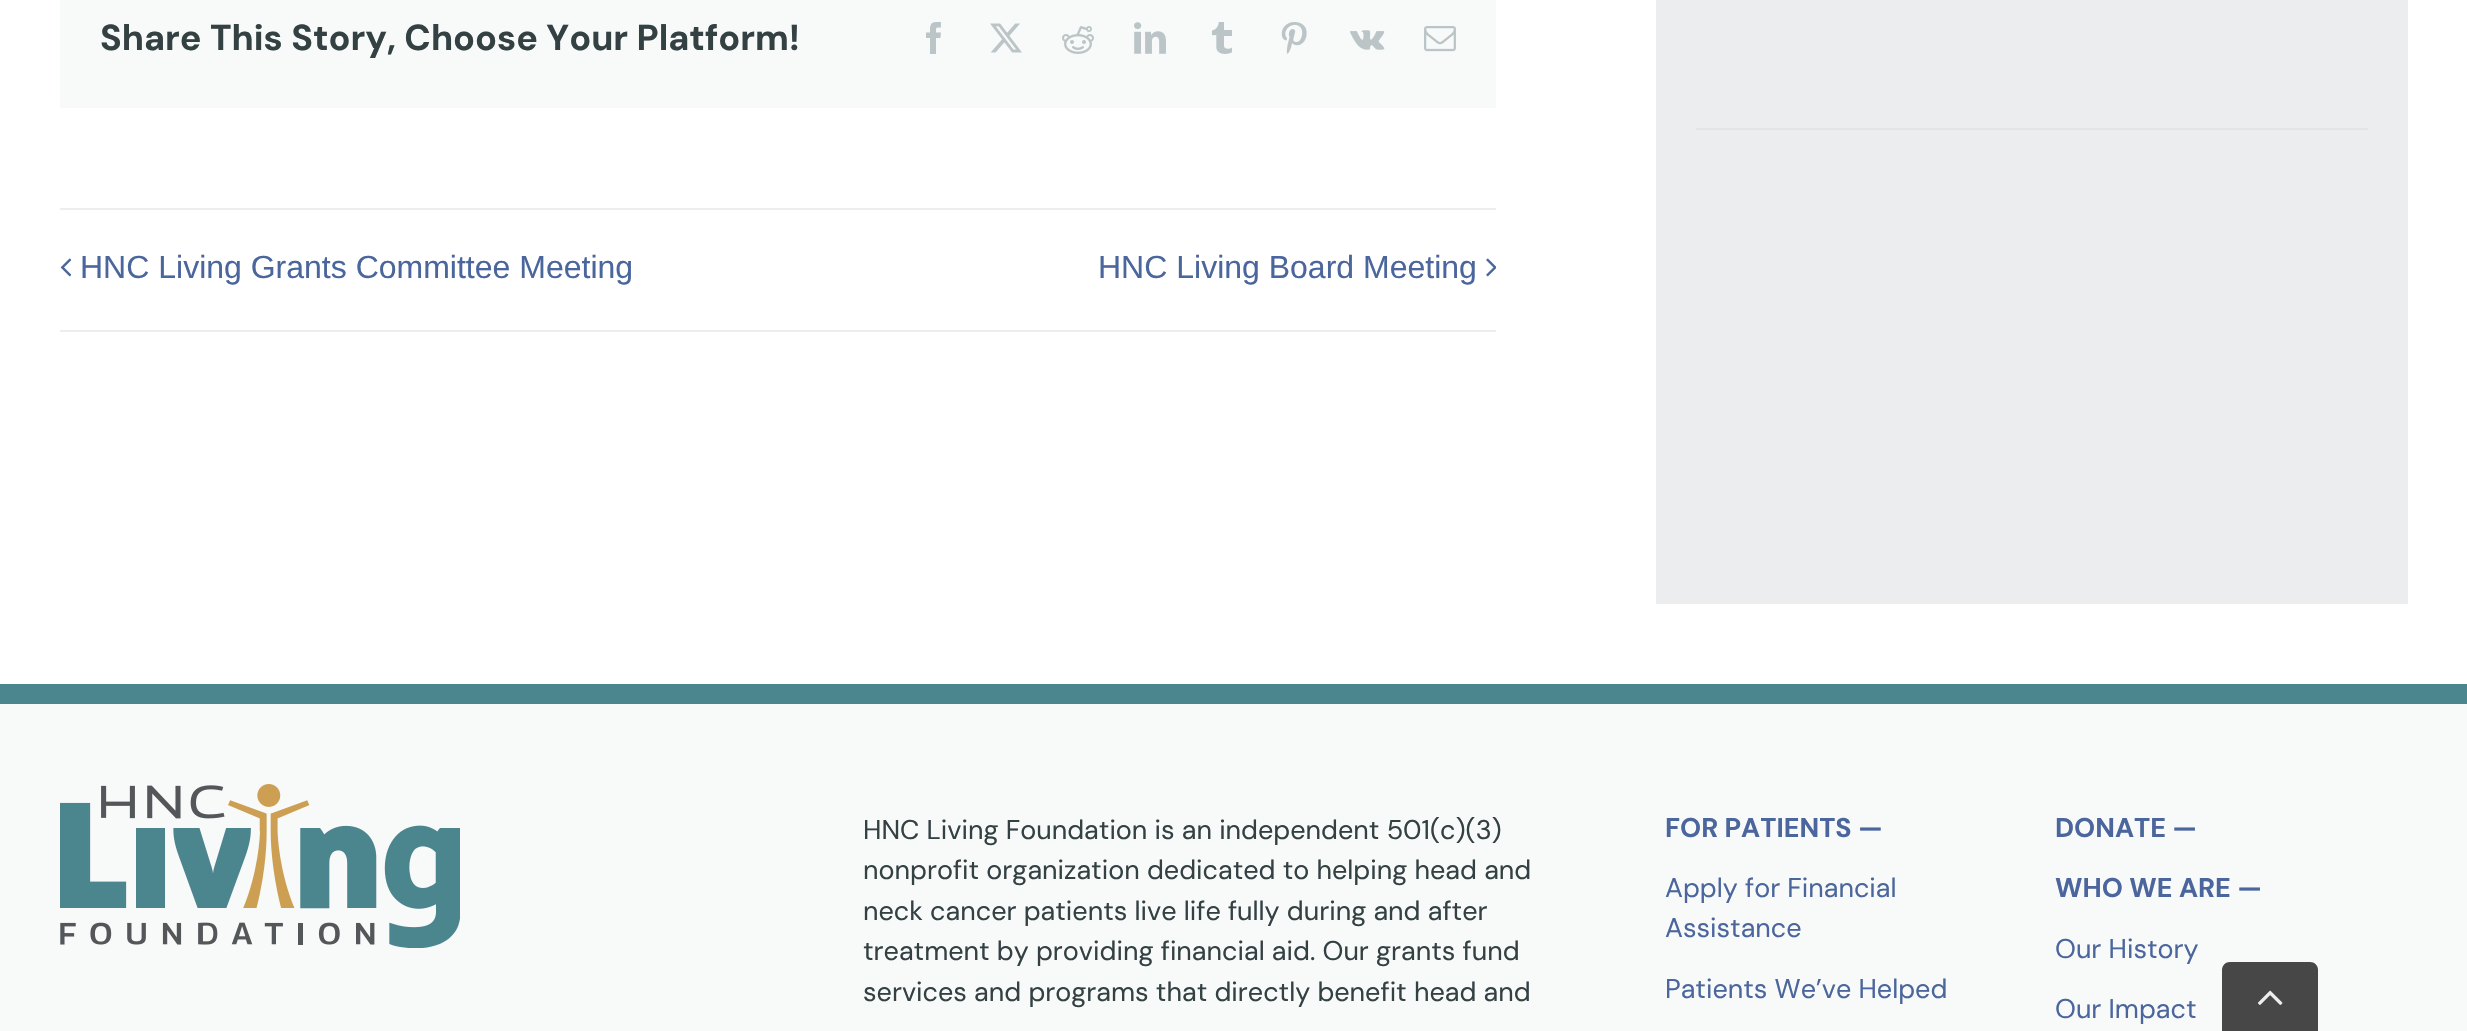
void draw(SkCanvas* canvas) {
    SkPaint paint;
    paint.setAntiAlias(true);
    canvas->clear(0xFFFFFFFF);
    paint.setColor(0xFFF8F9F9);
    canvas->drawRect(SkRect::MakeXYWH(60, 0, 1436, 108), paint);
    SkFont font1(fontMgr->matchFamilyStyle("DM Sans", SkFontStyle::Bold()), 36);
    font1.setSubpixel(true);
    paint.setColor(0xFF344143);
    canvas->drawString("Share This Story, Choose Your Platform!", 100, 50, font1, paint);
    canvas->drawImageRect(SkImages::DeferredFromEncodedData(SkData::MakeFromFileName("img1.png")), SkRect::MakeXYWH(926, 22, 15, 32), SkSamplingOptions());
    canvas->drawImageRect(SkImages::DeferredFromEncodedData(SkData::MakeFromFileName("img2.png")), SkRect::MakeXYWH(990, 23, 32, 30), SkSamplingOptions());
    canvas->drawImageRect(SkImages::DeferredFromEncodedData(SkData::MakeFromFileName("img3.png")), SkRect::MakeXYWH(1062, 26, 32, 28), SkSamplingOptions());
    canvas->drawImageRect(SkImages::DeferredFromEncodedData(SkData::MakeFromFileName("img4.png")), SkRect::MakeXYWH(1134, 22, 32, 32), SkSamplingOptions());
    canvas->drawImageRect(SkImages::DeferredFromEncodedData(SkData::MakeFromFileName("img5.png")), SkRect::MakeXYWH(1212, 22, 20, 32), SkSamplingOptions());
    canvas->drawImageRect(SkImages::DeferredFromEncodedData(SkData::MakeFromFileName("img6.png")), SkRect::MakeXYWH(1281, 22, 26, 32), SkSamplingOptions());
    canvas->drawImageRect(SkImages::DeferredFromEncodedData(SkData::MakeFromFileName("img7.png")), SkRect::MakeXYWH(1350, 30, 35, 20), SkSamplingOptions());
    canvas->drawImageRect(SkImages::DeferredFromEncodedData(SkData::MakeFromFileName("img8.png")), SkRect::MakeXYWH(1424, 26, 32, 26), SkSamplingOptions());
    paint.setColor(0xFFEBEDEE);
    canvas->drawRect(SkRect::MakeXYWH(60, 208, 1436, 2), paint);
    canvas->drawRect(SkRect::MakeXYWH(60, 330, 1436, 2), paint);
    canvas->drawImageRect(SkImages::DeferredFromEncodedData(SkData::MakeFromFileName("img9.png")), SkRect::MakeXYWH(60, 258, 12, 19), SkSamplingOptions());
    SkFont font2(fontMgr->matchFamilyStyle("Liberation Sans", SkFontStyle::Normal()), 32);
    font2.setSubpixel(true);
    paint.setColor(0xFF4B669C);
    canvas->drawString("HNC Living Grants Committee Meeting", 80, 278, font2, paint);
    canvas->drawString("HNC Living Board Meeting", 1098, 278, font2, paint);
    canvas->drawImageRect(SkImages::DeferredFromEncodedData(SkData::MakeFromFileName("img10.png")), SkRect::MakeXYWH(1486, 258, 10, 19), SkSamplingOptions());
    paint.setColor(0xFFEBEDEE);
    canvas->drawRect(SkRect::MakeXYWH(1656, 0, 752, 604), paint);
    paint.setColor(0xFFE4E4E4);
    canvas->drawRect(SkRect::MakeXYWH(1696, 128, 672, 2), paint);
    paint.setColor(0xFFF8F9F9);
    canvas->drawRect(SkRect::MakeXYWH(0, 704, 2467, 327), paint);
    paint.setColor(0xFF4B858E);
    canvas->drawRect(SkRect::MakeXYWH(0, 684, 2467, 20), paint);
    canvas->drawImageRect(SkImages::DeferredFromEncodedData(SkData::MakeFromFileName("img11.png")), SkRect::MakeXYWH(60, 784, 400, 164), SkSamplingOptions());
    SkFont font3(fontMgr->matchFamilyStyle("DM Sans", SkFontStyle::Normal()), 27);
    font3.setSubpixel(true);
    paint.setColor(0xFF344143);
    canvas->drawString("HNC Living Foundation is an independent 501(c)(3)", 863, 839, font3, paint);
    canvas->drawString("nonprofit organization dedicated to helping head and", 863, 879, font3, paint);
    canvas->drawString("neck cancer patients live life fully during and after", 863, 920, font3, paint);
    canvas->drawString("treatment by providing financial aid. Our grants fund", 863, 960, font3, paint);
    canvas->drawString("services and programs that directly benefit head and", 863, 1001, font3, paint);
    SkFont font4(fontMgr->matchFamilyStyle("DM Sans", SkFontStyle::Bold()), 27);
    font4.setSubpixel(true);
    paint.setColor(0xFF4B669C);
    canvas->drawString("FOR PATIENTS —", 1665, 837, font4, paint);
    canvas->drawString("Apply for Financial", 1665, 897, font3, paint);
    canvas->drawString("Assistance", 1665, 937, font3, paint);
    canvas->drawString("Patients We’ve Helped", 1665, 998, font3, paint);
    canvas->drawString("DONATE —", 2055, 837, font4, paint);
    canvas->drawString("WHO WE ARE —", 2055, 897, font4, paint);
    canvas->drawString("Our History", 2055, 958, font3, paint);
    canvas->drawString("Our Impact", 2055, 1018, font3, paint);
    paint.setColor(0xFF474747);
    canvas->drawPath(SkPathBuilder().moveTo(2230, 962).lineTo(2310, 962).cubicTo(2314.5f, 962, 2318, 965.5f, 2318, 970).lineTo(2318, 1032).lineTo(2222, 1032).lineTo(2222, 970).cubicTo(2222, 965.5f, 2225.5f, 962, 2230, 962).close().detach(), paint);
    canvas->drawImageRect(SkImages::DeferredFromEncodedData(SkData::MakeFromFileName("img12.png")), SkRect::MakeXYWH(2258, 990, 25, 15), SkSamplingOptions());
}
